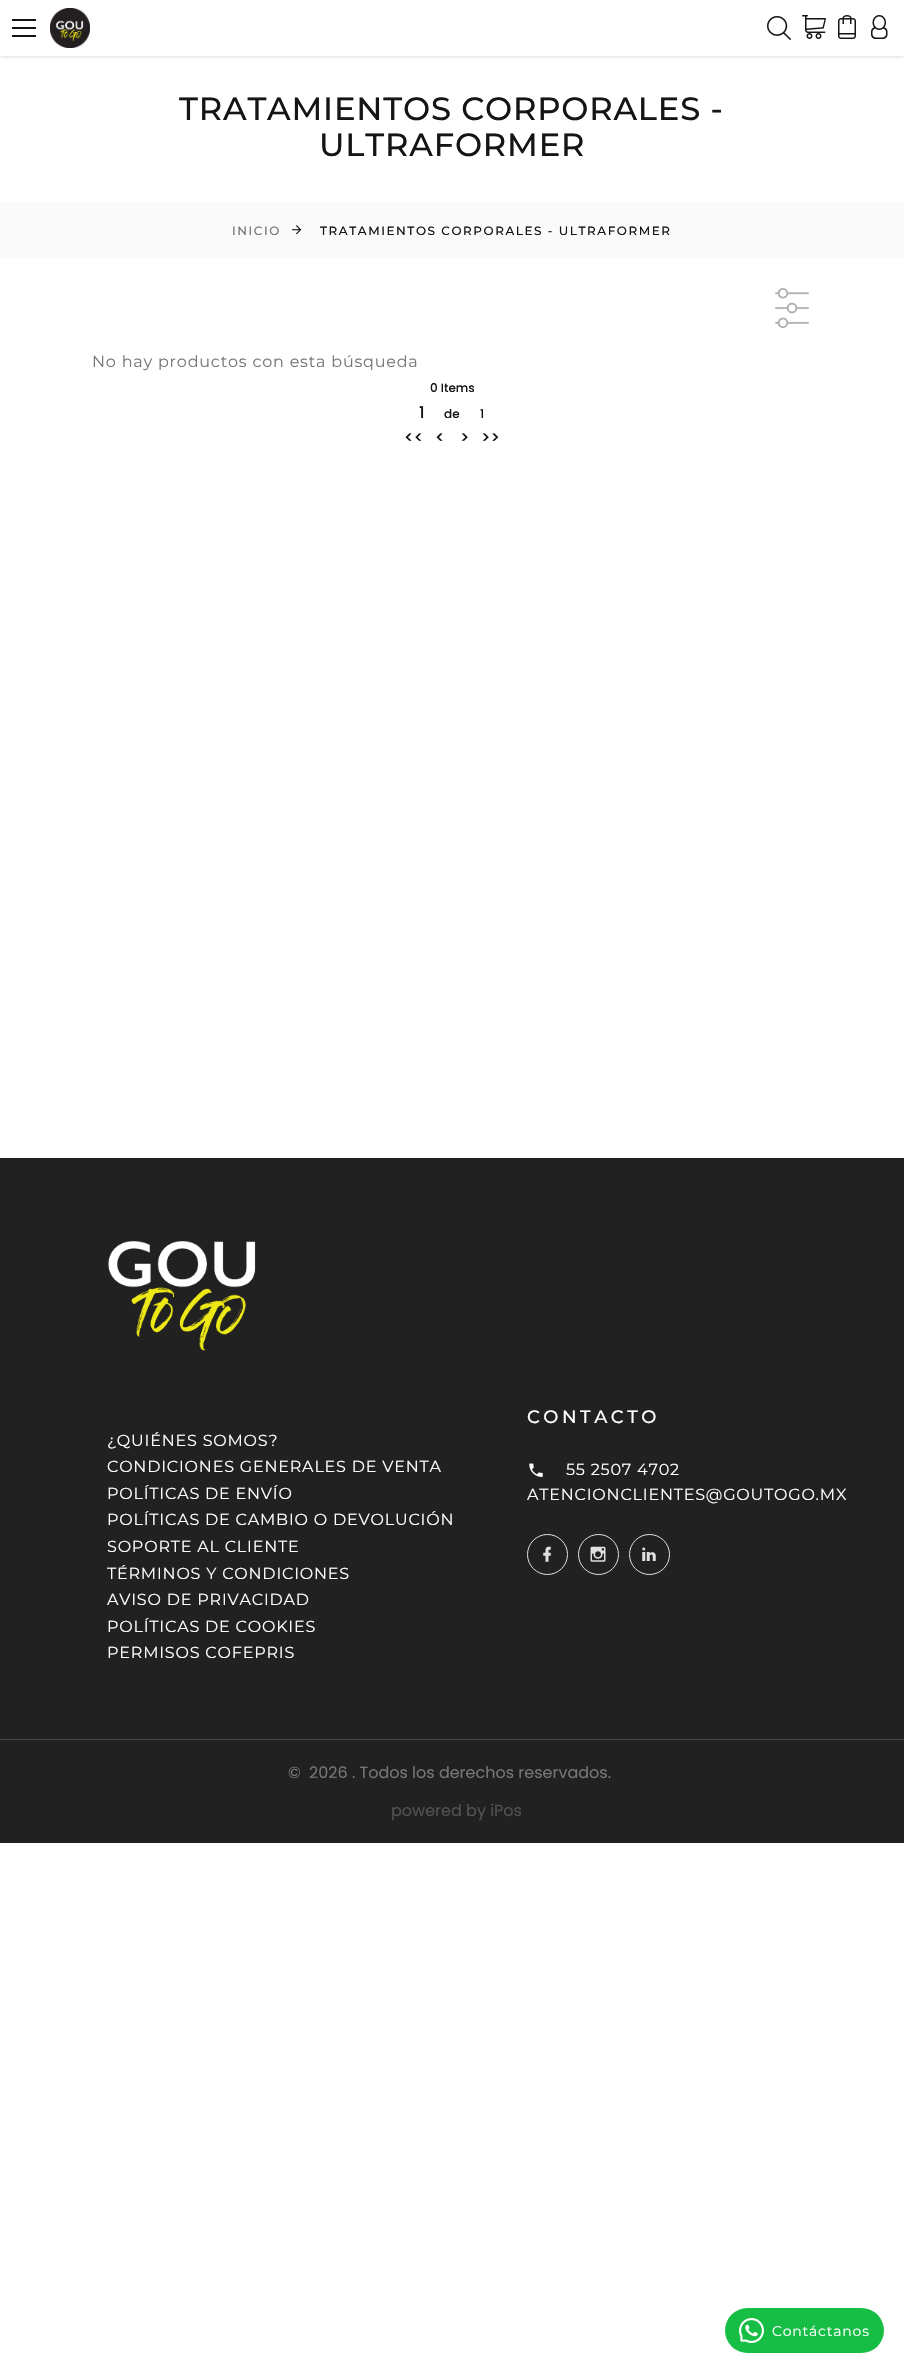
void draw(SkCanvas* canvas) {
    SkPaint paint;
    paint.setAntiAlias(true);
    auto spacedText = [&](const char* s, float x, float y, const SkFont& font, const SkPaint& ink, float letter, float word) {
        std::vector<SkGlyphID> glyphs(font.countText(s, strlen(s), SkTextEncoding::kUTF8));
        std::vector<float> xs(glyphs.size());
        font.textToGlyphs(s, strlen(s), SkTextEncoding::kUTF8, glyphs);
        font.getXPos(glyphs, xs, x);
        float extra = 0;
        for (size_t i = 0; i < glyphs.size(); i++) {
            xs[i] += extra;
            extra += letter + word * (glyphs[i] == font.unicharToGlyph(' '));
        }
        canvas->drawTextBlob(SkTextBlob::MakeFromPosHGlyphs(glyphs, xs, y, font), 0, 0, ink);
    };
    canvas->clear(0xFFFFFFFF);
    canvas->save();
    canvas->clipRect(SkRect::MakeXYWH(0, 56, 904, 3));
    paint.setColor(0x30010304);
    paint.setMaskFilter(SkMaskFilter::MakeBlur(kNormal_SkBlurStyle, 2.5f));
    canvas->drawRect(SkRect::MakeXYWH(0, 0, 904, 56), paint);
    paint.setMaskFilter(nullptr);
    canvas->restore();
    paint.setColor(0xFF151515);
    canvas->drawRect(SkRect::MakeXYWH(12, 27, 24, 2), paint);
    canvas->drawRect(SkRect::MakeXYWH(12, 19, 24, 2), paint);
    canvas->drawRect(SkRect::MakeXYWH(12, 35, 24, 2), paint);
    canvas->drawImageRect(SkImages::DeferredFromEncodedData(SkData::MakeFromFileName("img1.png")), SkRect::MakeXYWH(50, 8, 40, 40), SkSamplingOptions());
    canvas->drawImageRect(SkImages::DeferredFromEncodedData(SkData::MakeFromFileName("img2.png")), SkRect::MakeXYWH(767, 16, 24, 24), SkSamplingOptions());
    canvas->drawImageRect(SkImages::DeferredFromEncodedData(SkData::MakeFromFileName("img3.png")), SkRect::MakeXYWH(802, 15, 24, 24), SkSamplingOptions());
    canvas->drawImageRect(SkImages::DeferredFromEncodedData(SkData::MakeFromFileName("img4.png")), SkRect::MakeXYWH(838, 15, 18, 24), SkSamplingOptions());
    canvas->drawImageRect(SkImages::DeferredFromEncodedData(SkData::MakeFromFileName("img5.png")), SkRect::MakeXYWH(871, 15, 17, 24), SkSamplingOptions());
    SkFont font1(fontMgr->matchFamilyStyle("Montserrat", SkFontStyle(500, SkFontStyle::kNormal_Width, SkFontStyle::kUpright_Slant)), 32.25f);
    font1.setSubpixel(true);
    spacedText("TRATAMIENTOS CORPORALES -", 179, 120, font1, paint, 0.8f, 0);
    spacedText("ULTRAFORMER", 319, 156, font1, paint, 0.8f, 0);
    paint.setColor(0xFFF9FAF9);
    canvas->drawRect(SkRect::MakeXYWH(0, 202, 904, 56), paint);
    SkFont font2(fontMgr->matchFamilyStyle("Montserrat", SkFontStyle(500, SkFontStyle::kNormal_Width, SkFontStyle::kUpright_Slant)), 12);
    font2.setSubpixel(true);
    paint.setColor(0xFF777777);
    spacedText("INICIO", 232, 235, font2, paint, 1.55f, 0);
    canvas->drawImageRect(SkImages::DeferredFromEncodedData(SkData::MakeFromFileName("img6.png")), SkRect::MakeXYWH(292, 225, 10, 10), SkSamplingOptions());
    paint.setColor(0xFF151515);
    spacedText("TRATAMIENTOS CORPORALES - ULTRAFORMER", 320, 235, font2, paint, 1.55f, 0);
    canvas->drawImageRect(SkImages::DeferredFromEncodedData(SkData::MakeFromFileName("img7.png")), SkRect::MakeXYWH(775, 288, 34, 40), SkSamplingOptions());
    SkFont font3(fontMgr->matchFamilyStyle("Montserrat", SkFontStyle::Normal()), 16);
    font3.setSubpixel(true);
    paint.setColor(0xFF777777);
    spacedText("No hay productos con esta búsqueda", 92, 367, font3, paint, 0.8f, 0);
    SkFont font4(fontMgr->matchFamilyStyle("Poppins", SkFontStyle(500, SkFontStyle::kNormal_Width, SkFontStyle::kUpright_Slant)), 12);
    font4.setSubpixel(true);
    paint.setColor(0xFF151515);
    canvas->drawString("0 Items", 430, 392, font4, paint);
    SkFont font5(fontMgr->matchFamilyStyle("Poppins", SkFontStyle(500, SkFontStyle::kNormal_Width, SkFontStyle::kUpright_Slant)), 16);
    font5.setSubpixel(true);
    canvas->drawString("1", 419, 418, font5, paint);
    canvas->drawString("de", 444, 418, font4, paint);
    canvas->drawString("1", 480, 418, font4, paint);
    canvas->drawString("<<", 404, 443, font5, paint);
    canvas->drawString("<", 435, 443, font5, paint);
    canvas->drawString(">", 460, 443, font5, paint);
    canvas->drawString(">>", 481, 443, font5, paint);
    paint.setColor(0xFF212121);
    canvas->drawRect(SkRect::MakeXYWH(0, 1158, 904, 685), paint);
    canvas->drawImageRect(SkImages::DeferredFromEncodedData(SkData::MakeFromFileName("img8.png")), SkRect::MakeXYWH(108, 1241, 148, 110), SkSamplingOptions());
    paint.setColor(0xFFFFFFFF);
    spacedText("¿QUIÉNES SOMOS?", 107, 1446, font3, paint, 0.8f, 0);
    spacedText("CONDICIONES GENERALES DE VENTA", 107, 1472, font3, paint, 0.8f, 0);
    spacedText("POLÍTICAS DE ENVÍO", 107, 1499, font3, paint, 0.8f, 0);
    spacedText("POLÍTICAS DE CAMBIO O DEVOLUCIÓN", 107, 1525, font3, paint, 0.8f, 0);
    spacedText("SOPORTE AL CLIENTE", 107, 1552, font3, paint, 0.8f, 0);
    spacedText("TÉRMINOS Y CONDICIONES", 107, 1579, font3, paint, 0.8f, 0);
    spacedText("AVISO DE PRIVACIDAD", 107, 1605, font3, paint, 0.8f, 0);
    spacedText("POLÍTICAS DE COOKIES", 107, 1632, font3, paint, 0.8f, 0);
    spacedText("PERMISOS COFEPRIS", 107, 1658, font3, paint, 0.8f, 0);
    SkFont font6(fontMgr->matchFamilyStyle("Montserrat", SkFontStyle(500, SkFontStyle::kNormal_Width, SkFontStyle::kUpright_Slant)), 18);
    font6.setSubpixel(true);
    spacedText("CONTACTO", 527, 1423, font6, paint, 3.5f, 0);
    canvas->drawImageRect(SkImages::DeferredFromEncodedData(SkData::MakeFromFileName("img9.png")), SkRect::MakeXYWH(529, 1463, 14, 14), SkSamplingOptions());
    spacedText("55 2507 4702", 566, 1475, font3, paint, 0.8f, 0);
    spacedText("ATENCIONCLIENTES@GOUTOGO.MX", 527, 1500, font3, paint, 0.8f, 0);
    paint.setStyle(SkPaint::kStroke_Style);
    paint.setStrokeWidth(1);
    paint.setColor(0xFFE1E1E1);
    canvas->drawCircle(547.5f, 1554.5f, 20, paint);
    canvas->drawImageRect(SkImages::DeferredFromEncodedData(SkData::MakeFromFileName("img10.png")), SkRect::MakeXYWH(543, 1546, 8, 16), SkSamplingOptions());
    canvas->drawCircle(598.5f, 1554.5f, 20, paint);
    canvas->drawImageRect(SkImages::DeferredFromEncodedData(SkData::MakeFromFileName("img11.png")), SkRect::MakeXYWH(590, 1546, 16, 16), SkSamplingOptions());
    canvas->drawCircle(649.5f, 1554.5f, 20, paint);
    canvas->drawImageRect(SkImages::DeferredFromEncodedData(SkData::MakeFromFileName("img12.png")), SkRect::MakeXYWH(642, 1547, 14, 14), SkSamplingOptions());
    paint.setStyle(SkPaint::kFill_Style);
    paint.setColor(0xFF474747);
    canvas->drawRect(SkRect::MakeXYWH(0, 1739, 904, 1), paint);
    SkFont font7(fontMgr->matchFamilyStyle("Poppins", SkFontStyle::Normal()), 16);
    font7.setSubpixel(true);
    paint.setColor(0xFF777777);
    canvas->drawString("©", 288, 1778, font7, paint);
    canvas->drawString("2026 . Todos los derechos reservados.", 309, 1778, font7, paint);
    paint.setColor(0xFF525252);
    canvas->drawString("powered by iPos", 391, 1816, font7, paint);
    paint.setColor(0xFF16BE45);
    canvas->drawRoundRect(SkRect::MakeXYWH(725, 2308, 159, 45), 22.5f, 22.5f, paint);
    canvas->drawImageRect(SkImages::DeferredFromEncodedData(SkData::MakeFromFileName("img13.png")), SkRect::MakeXYWH(739, 2318, 25, 25), SkSamplingOptions());
    SkFont font8(fontMgr->matchFamilyStyle("Montserrat", SkFontStyle::Normal()), 14);
    font8.setSubpixel(true);
    paint.setColor(0xFFFFFFFF);
    spacedText("Contáctanos", 772, 2336, font8, paint, 0.8f, 0);
}
